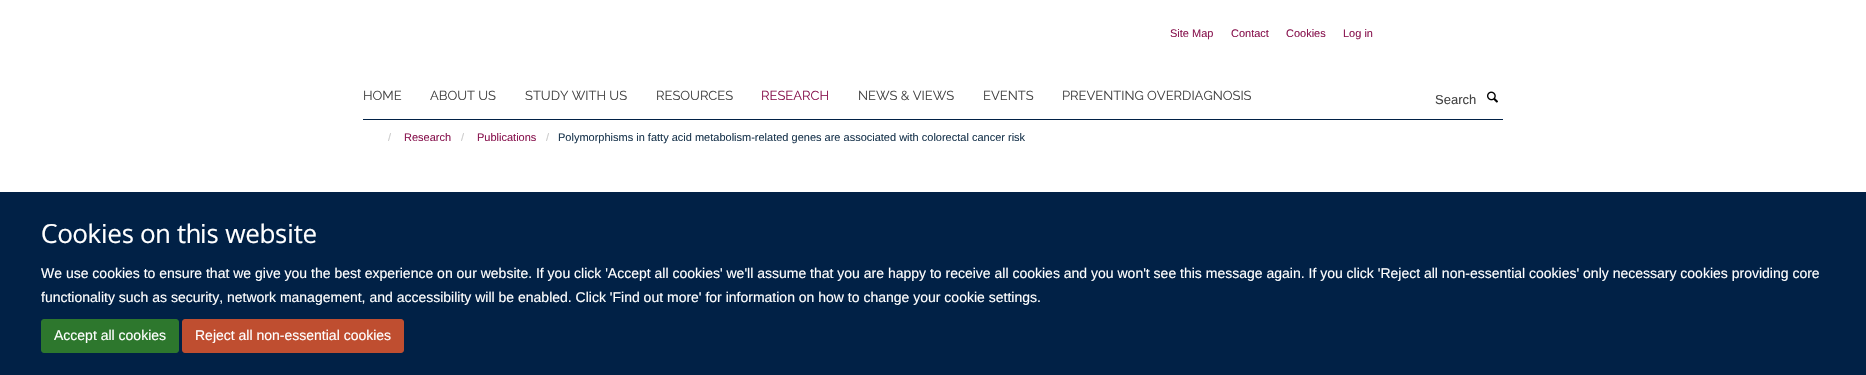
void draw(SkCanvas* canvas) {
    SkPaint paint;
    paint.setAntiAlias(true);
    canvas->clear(0xFFFFFFFF);
    SkFont font1(fontMgr->matchFamilyStyle("Liberation Sans", SkFontStyle::Normal()), 11);
    font1.setSubpixel(true);
    paint.setColor(0xFF8A1751);
    canvas->drawString("Site Map", 1170, 37, font1, paint);
    canvas->drawString("Contact", 1231, 37, font1, paint);
    canvas->drawString("Cookies", 1286, 37, font1, paint);
    canvas->drawString("Log in", 1343, 37, font1, paint);
    paint.setColor(0xFF012146);
    canvas->drawRect(SkRect::MakeXYWH(363, 119, 1140, 1), paint);
    SkFont font2(fontMgr->matchFamilyStyle("Raleway", SkFontStyle(100, SkFontStyle::kNormal_Width, SkFontStyle::kUpright_Slant)), 13);
    font2.setSubpixel(true);
    paint.setColor(0xFF444444);
    canvas->drawString("HOME", 363, 100, font2, paint);
    canvas->drawString("ABOUT US", 430, 100, font2, paint);
    canvas->drawString("STUDY WITH US", 525, 100, font2, paint);
    canvas->drawString("RESOURCES", 656, 100, font2, paint);
    paint.setColor(0xFF8A1751);
    canvas->drawString("RESEARCH", 761, 100, font2, paint);
    paint.setColor(0xFF444444);
    canvas->drawString("NEWS & VIEWS", 858, 100, font2, paint);
    canvas->drawString("EVENTS", 983, 100, font2, paint);
    canvas->drawString("PREVENTING OVERDIAGNOSIS", 1062, 100, font2, paint);
    SkFont font3(fontMgr->matchFamilyStyle("Liberation Sans", SkFontStyle::Normal()), 13);
    font3.setSubpixel(true);
    canvas->drawString("Search", 1435, 104, font3, paint);
    canvas->drawImageRect(SkImages::DeferredFromEncodedData(SkData::MakeFromFileName("img1.png")), SkRect::MakeXYWH(1487, 91, 11, 12), SkSamplingOptions());
    paint.setColor(0xFFCCCCCC);
    canvas->drawString("/", 388, 141, font1, paint);
    paint.setColor(0xFF8A1751);
    canvas->drawString("Research", 404, 141, font1, paint);
    paint.setColor(0xFFCCCCCC);
    canvas->drawString("/", 461, 141, font1, paint);
    paint.setColor(0xFF8A1751);
    canvas->drawString("Publications", 477, 141, font1, paint);
    paint.setColor(0xFFCCCCCC);
    canvas->drawString("/", 546, 141, font1, paint);
    paint.setColor(0xFF1D3850);
    canvas->drawString("Polymorphisms in fatty acid metabolism-related genes are associated with colorectal cancer risk", 558, 141, font1, paint);
    paint.setColor(0xFF012146);
    canvas->drawRect(SkRect::MakeXYWH(0, 192, 1866, 183), paint);
    SkFont font4(fontMgr->matchFamilyStyle("Oxygen", SkFontStyle::Normal()), 26);
    font4.setSubpixel(true);
    paint.setColor(0xFFFFFFFF);
    canvas->drawString("Cookies on this website", 41, 243, font4, paint);
    SkFont font5(fontMgr->matchFamilyStyle("Liberation Sans", SkFontStyle::Normal()), 14);
    font5.setSubpixel(true);
    canvas->drawString("We use cookies to ensure that we give you the best experience on our website. If you click 'Accept all cookies' we'll assume that you are happy to receive all cookies and you won't see this message again. If you click 'Reject all non-essential cookies' only necessary cookies providing core", 41, 278, font5, paint);
    canvas->drawString("functionality such as security, network management, and accessibility will be enabled. Click 'Find out more' for information on how to change your cookie settings.", 41, 302, font5, paint);
    paint.setColor(0xFF2D772D);
    canvas->drawRoundRect(SkRect::MakeXYWH(41.5f, 319.5f, 137, 33), 2.5f, 2.5f, paint);
    paint.setStyle(SkPaint::kStroke_Style);
    paint.setStrokeWidth(1);
    canvas->drawRoundRect(SkRect::MakeXYWH(41.5f, 319.5f, 137, 33), 2.5f, 2.5f, paint);
    paint.setStyle(SkPaint::kFill_Style);
    paint.setColor(0xFFFFFFFF);
    canvas->drawString("Accept all cookies", 54, 340, font5, paint);
    paint.setColor(0xFFBF4E30);
    canvas->drawRoundRect(SkRect::MakeXYWH(182.5f, 319.5f, 221, 33), 2.5f, 2.5f, paint);
    paint.setStyle(SkPaint::kStroke_Style);
    canvas->drawRoundRect(SkRect::MakeXYWH(182.5f, 319.5f, 221, 33), 2.5f, 2.5f, paint);
    paint.setStyle(SkPaint::kFill_Style);
    paint.setColor(0xFFFFFFFF);
    canvas->drawString("Reject all non-essential cookies", 195, 340, font5, paint);
}
